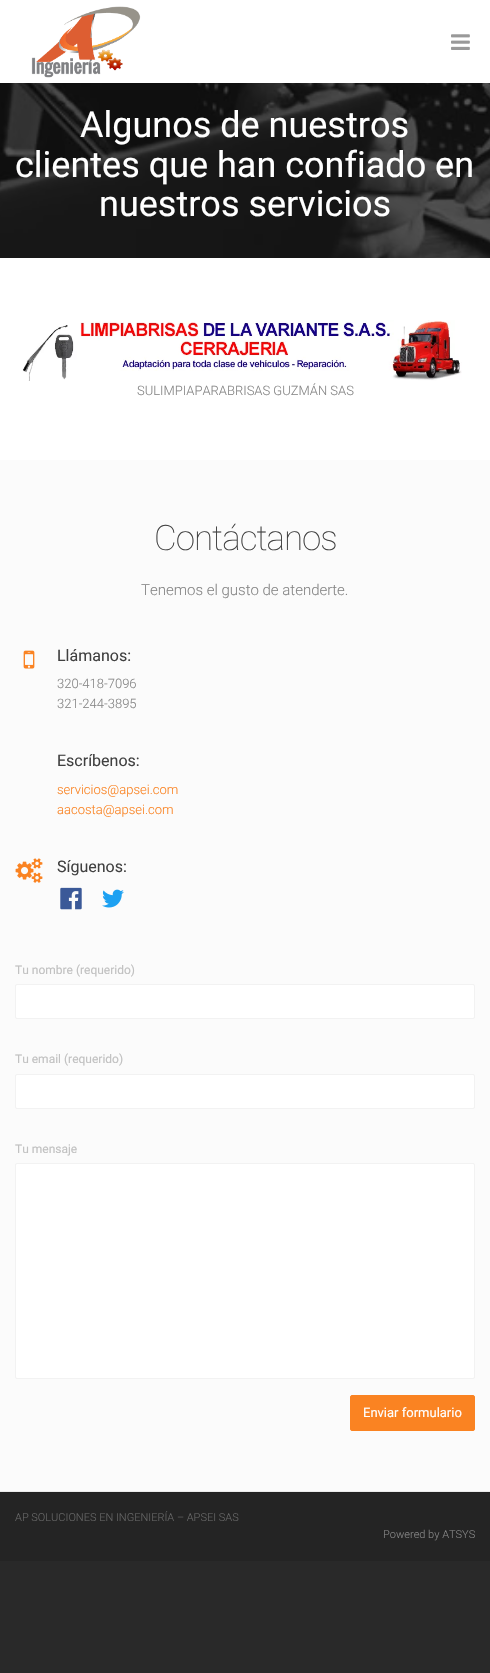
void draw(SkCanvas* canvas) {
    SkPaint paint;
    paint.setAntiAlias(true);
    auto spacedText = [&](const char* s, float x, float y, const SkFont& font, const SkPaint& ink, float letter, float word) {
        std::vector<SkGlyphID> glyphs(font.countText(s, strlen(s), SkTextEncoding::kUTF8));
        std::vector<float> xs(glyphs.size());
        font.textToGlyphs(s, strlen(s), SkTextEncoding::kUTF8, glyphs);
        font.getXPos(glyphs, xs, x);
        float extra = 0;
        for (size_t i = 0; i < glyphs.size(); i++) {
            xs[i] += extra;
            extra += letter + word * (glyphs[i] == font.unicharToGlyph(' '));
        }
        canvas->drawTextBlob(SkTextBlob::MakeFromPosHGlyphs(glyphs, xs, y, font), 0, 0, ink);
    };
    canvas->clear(0xFF292929);
    paint.setColor(0xFFFFFFFF);
    canvas->drawRect(SkRect::MakeXYWH(0, 0, 490, 83), paint);
    canvas->drawImageRect(SkImages::DeferredFromEncodedData(SkData::MakeFromFileName("img1.png")), SkRect::MakeXYWH(31, 6, 110, 72), SkSamplingOptions());
    canvas->drawImageRect(SkImages::DeferredFromEncodedData(SkData::MakeFromFileName("img2.png")), SkRect::MakeXYWH(451, 34, 19, 16), SkSamplingOptions());
    paint.setColor(0xFFFBFBFB);
    canvas->drawRect(SkRect::MakeXYWH(0, 460, 490, 1031), paint);
    canvas->drawImageRect(SkImages::DeferredFromEncodedData(SkData::MakeFromFileName("img3.png")), SkRect::MakeXYWH(0, 83, 490, 175), SkSamplingOptions());
    SkFont font1(fontMgr->matchFamilyStyle("Roboto", SkFontStyle::Normal()), 36);
    font1.setSubpixel(true);
    paint.setColor(0xFFFFFFFF);
    canvas->drawString("Algunos de nuestros", 80, 137, font1, paint);
    canvas->drawString("clientes que han confiado en", 15, 177, font1, paint);
    canvas->drawString("nuestros servicios", 99, 216, font1, paint);
    canvas->drawRect(SkRect::MakeXYWH(0, 258, 490, 202), paint);
    canvas->drawImageRect(SkImages::DeferredFromEncodedData(SkData::MakeFromFileName("img4.png")), SkRect::MakeXYWH(22, 320, 440, 61), SkSamplingOptions());
    SkFont font2(fontMgr->matchFamilyStyle("Roboto", SkFontStyle(300, SkFontStyle::kNormal_Width, SkFontStyle::kUpright_Slant)), 13);
    font2.setSubpixel(true);
    paint.setColor(0xFF868686);
    canvas->drawString("SULIMPIAPARABRISAS GUZMÁN SAS", 137, 395, font2, paint);
    paint.setColor(0xFFEBEBEB);
    canvas->drawRect(SkRect::MakeXYWH(0, 1491, 490, 1), paint);
    SkFont font3(fontMgr->matchFamilyStyle("Roboto", SkFontStyle(100, SkFontStyle::kNormal_Width, SkFontStyle::kUpright_Slant)), 35);
    font3.setSubpixel(true);
    paint.setColor(0xFF404040);
    spacedText("Contáctanos", 154, 550, font3, paint, -1, 0);
    SkFont font4(fontMgr->matchFamilyStyle("Roboto", SkFontStyle(300, SkFontStyle::kNormal_Width, SkFontStyle::kUpright_Slant)), 15);
    font4.setSubpixel(true);
    paint.setColor(0xFF868686);
    canvas->drawString("Tenemos el gusto de atenderte.", 141, 595, font4, paint);
    canvas->drawImageRect(SkImages::DeferredFromEncodedData(SkData::MakeFromFileName("img5.png")), SkRect::MakeXYWH(23, 650, 12, 19), SkSamplingOptions());
    SkFont font5(fontMgr->matchFamilyStyle("Roboto", SkFontStyle::Normal()), 16);
    font5.setSubpixel(true);
    paint.setColor(0xFF404040);
    canvas->drawString("Llámanos:", 57, 661, font5, paint);
    paint.setColor(0xFF868686);
    canvas->drawString("320-418-7096", 57, 688, font2, paint);
    canvas->drawString("321-244-3895", 57, 708, font2, paint);
    paint.setColor(0xFF404040);
    canvas->drawString("Escríbenos:", 57, 766, font5, paint);
    paint.setColor(0xFFFA8322);
    canvas->drawString("servicios@apsei.com", 57, 794, font2, paint);
    canvas->drawString("aacosta@apsei.com", 57, 814, font2, paint);
    canvas->drawImageRect(SkImages::DeferredFromEncodedData(SkData::MakeFromFileName("img6.png")), SkRect::MakeXYWH(15, 858, 28, 25), SkSamplingOptions());
    paint.setColor(0xFF404040);
    canvas->drawString("Síguenos:", 57, 872, font5, paint);
    canvas->drawImageRect(SkImages::DeferredFromEncodedData(SkData::MakeFromFileName("img7.png")), SkRect::MakeXYWH(60, 887, 22, 23), SkSamplingOptions());
    canvas->drawImageRect(SkImages::DeferredFromEncodedData(SkData::MakeFromFileName("img8.png")), SkRect::MakeXYWH(102, 889, 22, 19), SkSamplingOptions());
    SkFont font6(fontMgr->matchFamilyStyle("Roboto", SkFontStyle::Normal()), 12);
    font6.setSubpixel(true);
    paint.setColor(0xFFC1C1C1);
    canvas->drawString("Tu nombre (requerido)", 15, 974, font6, paint);
    paint.setColor(0xFFFFFFFF);
    canvas->drawRoundRect(SkRect::MakeXYWH(15.5f, 984.5f, 459, 34), 1.5f, 1.5f, paint);
    paint.setStyle(SkPaint::kStroke_Style);
    paint.setStrokeWidth(1);
    paint.setColor(0xFFF2F2F2);
    canvas->drawRoundRect(SkRect::MakeXYWH(15.5f, 984.5f, 459, 34), 1.5f, 1.5f, paint);
    paint.setStyle(SkPaint::kFill_Style);
    paint.setColor(0xFFC1C1C1);
    canvas->drawString("Tu email (requerido)", 15, 1063, font6, paint);
    paint.setColor(0xFFFFFFFF);
    canvas->drawRoundRect(SkRect::MakeXYWH(15.5f, 1074.5f, 459, 34), 1.5f, 1.5f, paint);
    paint.setStyle(SkPaint::kStroke_Style);
    paint.setColor(0xFFF2F2F2);
    canvas->drawRoundRect(SkRect::MakeXYWH(15.5f, 1074.5f, 459, 34), 1.5f, 1.5f, paint);
    paint.setStyle(SkPaint::kFill_Style);
    paint.setColor(0xFFC1C1C1);
    canvas->drawString("Tu mensaje", 15, 1153, font6, paint);
    paint.setColor(0xFFFFFFFF);
    canvas->drawRoundRect(SkRect::MakeXYWH(15.5f, 1163.5f, 459, 215), 1.5f, 1.5f, paint);
    paint.setStyle(SkPaint::kStroke_Style);
    paint.setColor(0xFFF2F2F2);
    canvas->drawRoundRect(SkRect::MakeXYWH(15.5f, 1163.5f, 459, 215), 1.5f, 1.5f, paint);
    paint.setStyle(SkPaint::kFill_Style);
    paint.setColor(0xFFFA8322);
    canvas->drawRoundRect(SkRect::MakeXYWH(350.5f, 1395.5f, 124, 35), 1.5f, 1.5f, paint);
    paint.setStyle(SkPaint::kStroke_Style);
    canvas->drawRoundRect(SkRect::MakeXYWH(350.5f, 1395.5f, 124, 35), 1.5f, 1.5f, paint);
    SkFont font7(fontMgr->matchFamilyStyle("Roboto", SkFontStyle::Normal()), 13);
    font7.setSubpixel(true);
    paint.setStyle(SkPaint::kFill_Style);
    paint.setColor(0xFFFFFFFF);
    canvas->drawString("Enviar formulario", 363, 1417, font7, paint);
    paint.setColor(0xFF242424);
    canvas->drawRect(SkRect::MakeXYWH(0, 1493, 490, 68), paint);
    paint.setColor(0xFF222222);
    canvas->drawRect(SkRect::MakeXYWH(0, 1492, 490, 1), paint);
    SkFont font8(fontMgr->matchFamilyStyle("Roboto", SkFontStyle(300, SkFontStyle::kNormal_Width, SkFontStyle::kUpright_Slant)), 11);
    font8.setSubpixel(true);
    paint.setColor(0xFF666666);
    canvas->drawString("AP SOLUCIONES EN INGENIERÍA – APSEI SAS", 15, 1521, font8, paint);
    paint.setColor(0xFF868686);
    canvas->drawString("Powered by ATSYS", 383, 1538, font8, paint);
}
